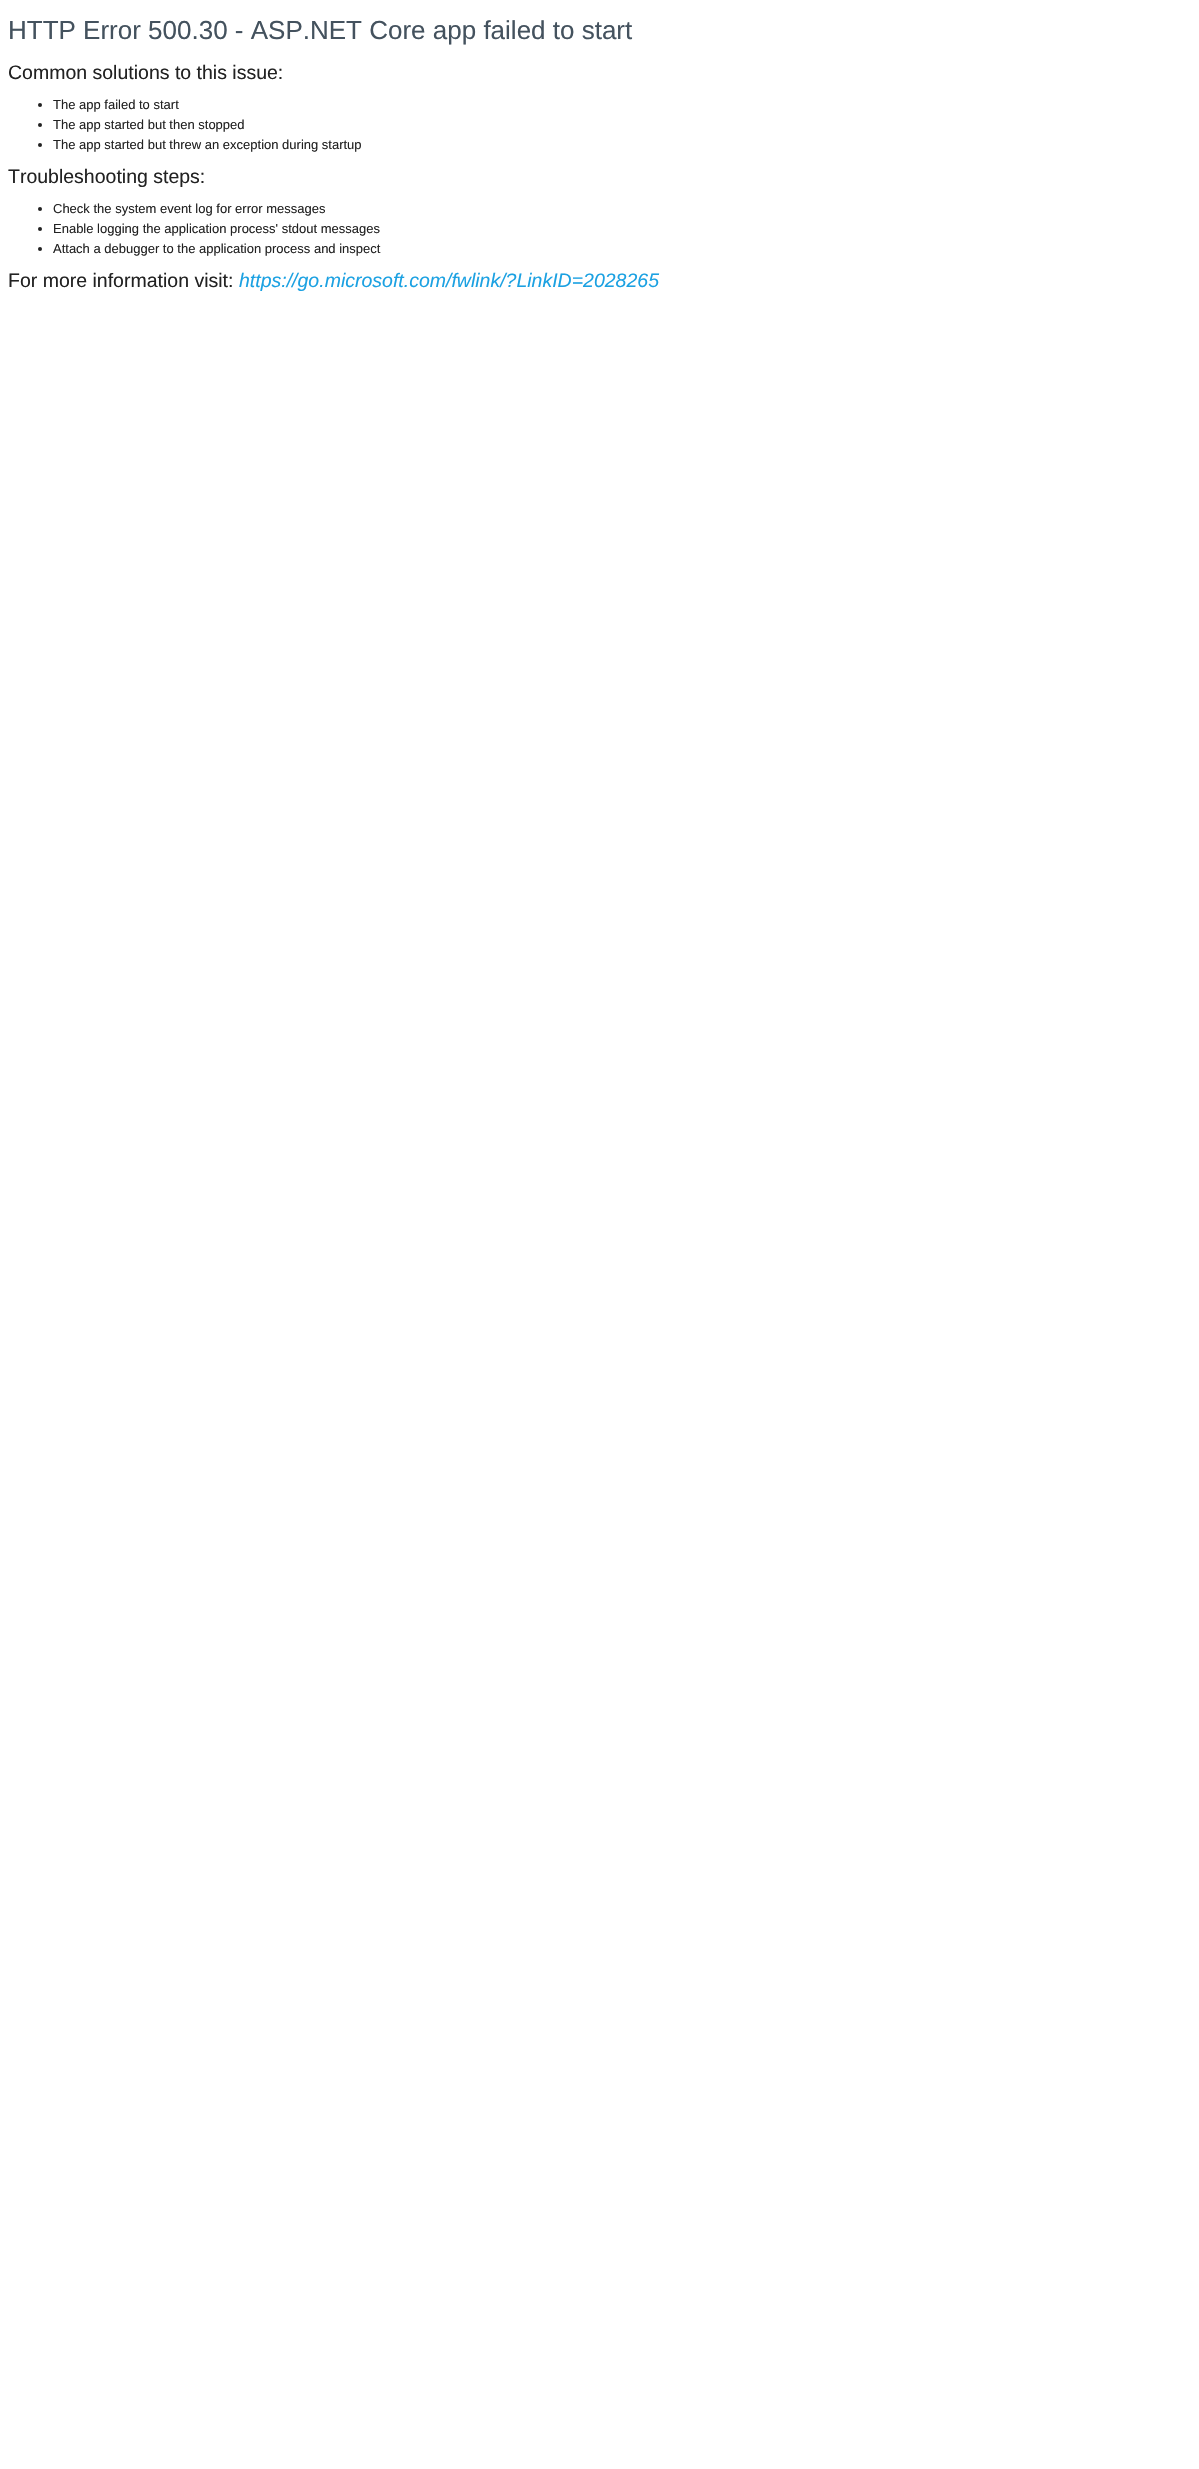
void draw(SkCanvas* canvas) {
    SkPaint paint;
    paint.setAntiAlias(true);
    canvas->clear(0xFFFFFFFF);
    SkFont font1(fontMgr->matchFamilyStyle("Liberation Sans", SkFontStyle::Normal()), 26);
    font1.setSubpixel(true);
    paint.setColor(0xFF44525E);
    canvas->drawString("HTTP Error 500.30 - ASP.NET Core app failed to start", 8, 39, font1, paint);
    SkFont font2(fontMgr->matchFamilyStyle("Liberation Sans", SkFontStyle::Normal()), 19.5f);
    font2.setSubpixel(true);
    paint.setColor(0xFF222222);
    canvas->drawString("Common solutions to this issue:", 8, 79, font2, paint);
    canvas->drawCircle(40, 105, 2, paint);
    SkFont font3(fontMgr->matchFamilyStyle("Liberation Sans", SkFontStyle::Normal()), 13);
    font3.setSubpixel(true);
    canvas->drawString("The app failed to start", 53, 109, font3, paint);
    canvas->drawCircle(40, 125, 2, paint);
    canvas->drawString("The app started but then stopped", 53, 129, font3, paint);
    canvas->drawCircle(40, 145, 2, paint);
    canvas->drawString("The app started but threw an exception during startup", 53, 149, font3, paint);
    canvas->drawString("Troubleshooting steps:", 8, 183, font2, paint);
    canvas->drawCircle(40, 209, 2, paint);
    canvas->drawString("Check the system event log for error messages", 53, 213, font3, paint);
    canvas->drawCircle(40, 229, 2, paint);
    canvas->drawString("Enable logging the application process' stdout messages", 53, 233, font3, paint);
    canvas->drawCircle(40, 249, 2, paint);
    canvas->drawString("Attach a debugger to the application process and inspect", 53, 253, font3, paint);
    canvas->drawString("For more information visit:", 8, 287, font2, paint);
    SkFont font4(fontMgr->matchFamilyStyle("Liberation Sans", SkFontStyle::Italic()), 19.5f);
    font4.setSubpixel(true);
    paint.setColor(0xFF1BA1E2);
    canvas->drawString("https://go.microsoft.com/fwlink/?LinkID=2028265", 239, 287, font4, paint);
}
